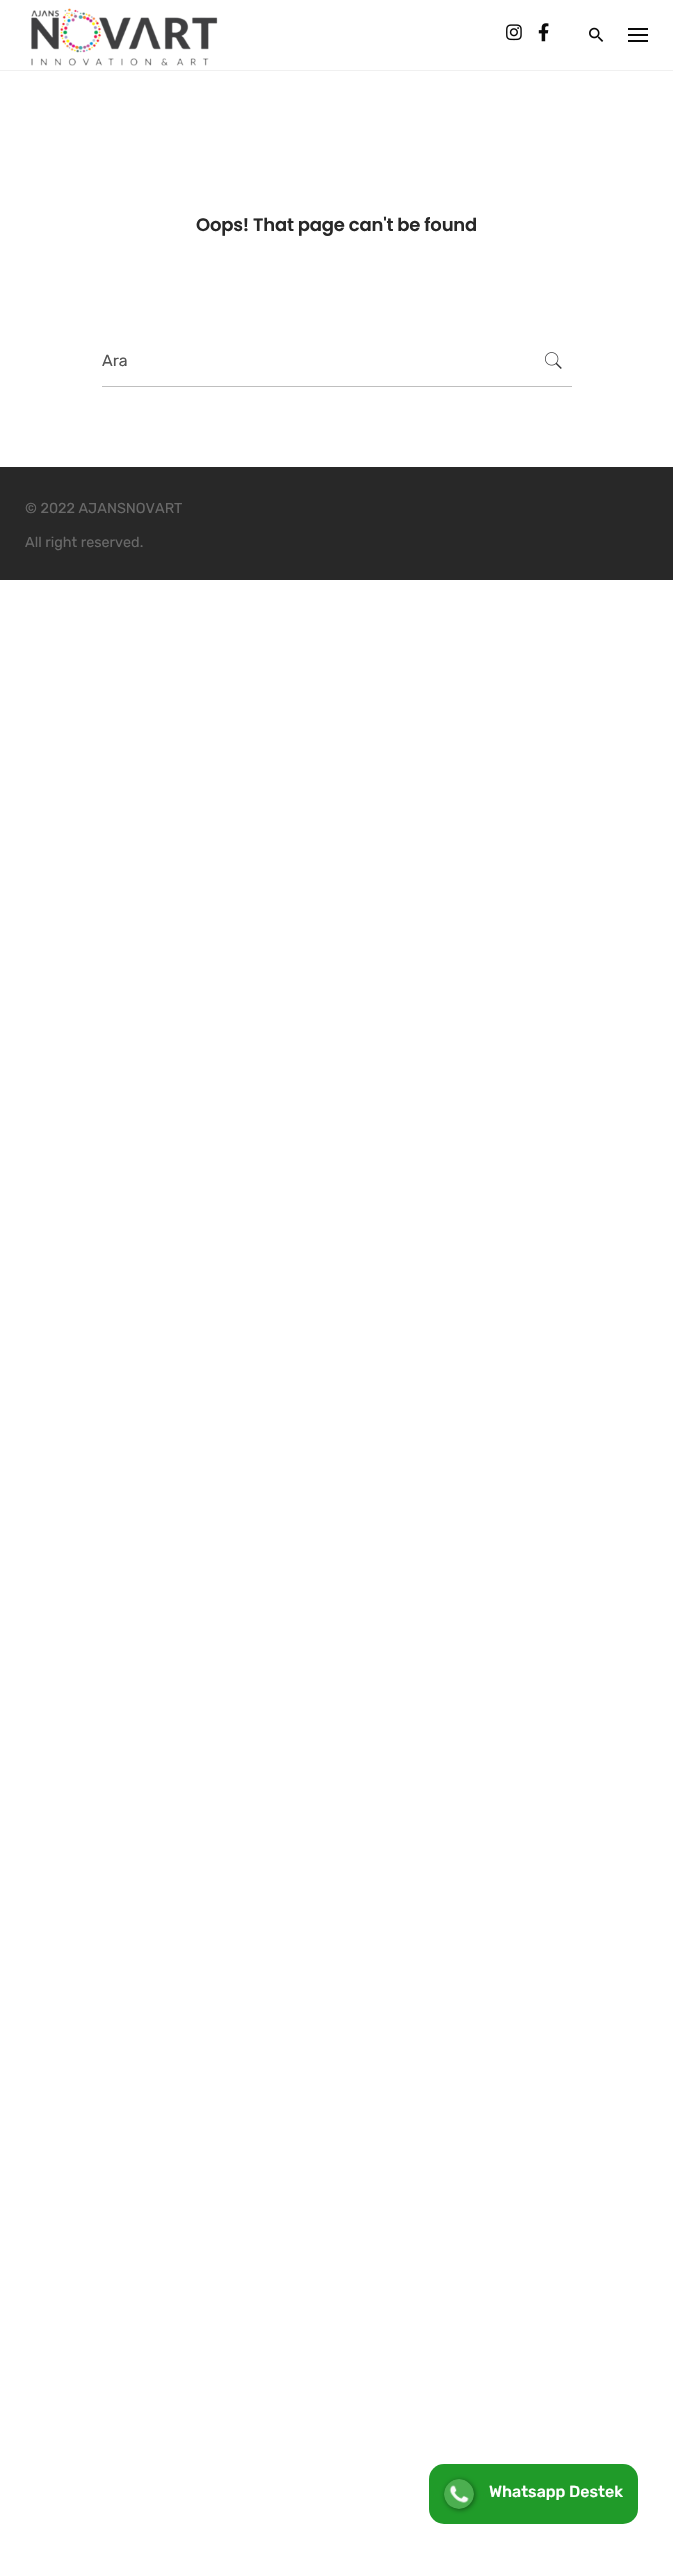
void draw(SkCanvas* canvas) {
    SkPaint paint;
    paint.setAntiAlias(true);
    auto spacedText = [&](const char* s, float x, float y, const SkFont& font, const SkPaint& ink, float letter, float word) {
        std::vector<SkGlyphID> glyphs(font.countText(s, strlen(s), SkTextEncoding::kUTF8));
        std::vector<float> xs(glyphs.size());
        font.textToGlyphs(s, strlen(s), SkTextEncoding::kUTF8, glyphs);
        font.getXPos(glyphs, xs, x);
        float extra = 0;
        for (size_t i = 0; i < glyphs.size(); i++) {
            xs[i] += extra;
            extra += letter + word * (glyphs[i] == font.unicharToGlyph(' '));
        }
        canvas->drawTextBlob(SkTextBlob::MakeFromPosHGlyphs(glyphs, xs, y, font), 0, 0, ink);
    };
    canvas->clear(0xFFFFFFFF);
    paint.setColor(0xFFF0F0F0);
    canvas->drawRect(SkRect::MakeXYWH(0, 70, 673, 1), paint);
    canvas->drawImageRect(SkImages::DeferredFromEncodedData(SkData::MakeFromFileName("img1.png")), SkRect::MakeXYWH(31, 8, 187, 58), SkSamplingOptions());
    canvas->drawImageRect(SkImages::DeferredFromEncodedData(SkData::MakeFromFileName("img2.png")), SkRect::MakeXYWH(506, 24, 16, 17), SkSamplingOptions());
    canvas->drawImageRect(SkImages::DeferredFromEncodedData(SkData::MakeFromFileName("img3.png")), SkRect::MakeXYWH(538, 23, 11, 19), SkSamplingOptions());
    canvas->drawImageRect(SkImages::DeferredFromEncodedData(SkData::MakeFromFileName("img4.png")), SkRect::MakeXYWH(589, 27, 15, 15), SkSamplingOptions());
    paint.setColor(0xFF0A0A0A);
    canvas->drawRect(SkRect::MakeXYWH(628, 28, 20, 2), paint);
    canvas->drawRect(SkRect::MakeXYWH(628, 40, 20, 2), paint);
    canvas->drawRect(SkRect::MakeXYWH(628, 34, 20, 2), paint);
    SkFont font1(fontMgr->matchFamilyStyle("Poppins", SkFontStyle(600, SkFontStyle::kNormal_Width, SkFontStyle::kUpright_Slant)), 18);
    font1.setSubpixel(true);
    paint.setColor(0xFF282828);
    spacedText("Oops! That page can't be found", 196, 231, font1, paint, -0.2f, 0);
    paint.setColor(0xFFBFBFBF);
    canvas->drawRect(SkRect::MakeXYWH(102, 386, 470, 1), paint);
    SkFont font2(fontMgr->matchFamilyStyle("Rubik", SkFontStyle::Normal()), 16);
    font2.setSubpixel(true);
    paint.setColor(0xFF555555);
    canvas->drawString("Ara", 102, 366, font2, paint);
    canvas->drawImageRect(SkImages::DeferredFromEncodedData(SkData::MakeFromFileName("img5.png")), SkRect::MakeXYWH(545, 352, 17, 17), SkSamplingOptions());
    paint.setColor(0xFF282828);
    canvas->drawRect(SkRect::MakeXYWH(0, 467, 673, 113), paint);
    SkFont font3(fontMgr->matchFamilyStyle("Rubik", SkFontStyle::Normal()), 14.4f);
    font3.setSubpixel(true);
    paint.setColor(0xFF696969);
    canvas->drawString("© 2022 AJANSNOVART", 25, 513, font3, paint);
    canvas->drawString("All right reserved.", 25, 547, font3, paint);
    paint.setColor(0xFF209B29);
    canvas->drawRoundRect(SkRect::MakeXYWH(429, 2464, 209, 60), 15, 15, paint);
    paint.setColor(0x6E000000);
    paint.setMaskFilter(SkMaskFilter::MakeBlur(kNormal_SkBlurStyle, 2.5f));
    canvas->drawRoundRect(SkRect::MakeXYWH(445, 2480, 30, 30), 15, 15, paint);
    paint.setMaskFilter(nullptr);
    canvas->drawImageRect(SkImages::DeferredFromEncodedData(SkData::MakeFromFileName("img6.png")), SkRect::MakeXYWH(444, 2479, 30, 30), SkSamplingOptions());
    SkFont font4(fontMgr->matchFamilyStyle("Rubik", SkFontStyle(500, SkFontStyle::kNormal_Width, SkFontStyle::kUpright_Slant)), 16);
    font4.setSubpixel(true);
    paint.setColor(0xFFFFFFFF);
    canvas->drawString("Whatsapp Destek", 489, 2497, font4, paint);
}
